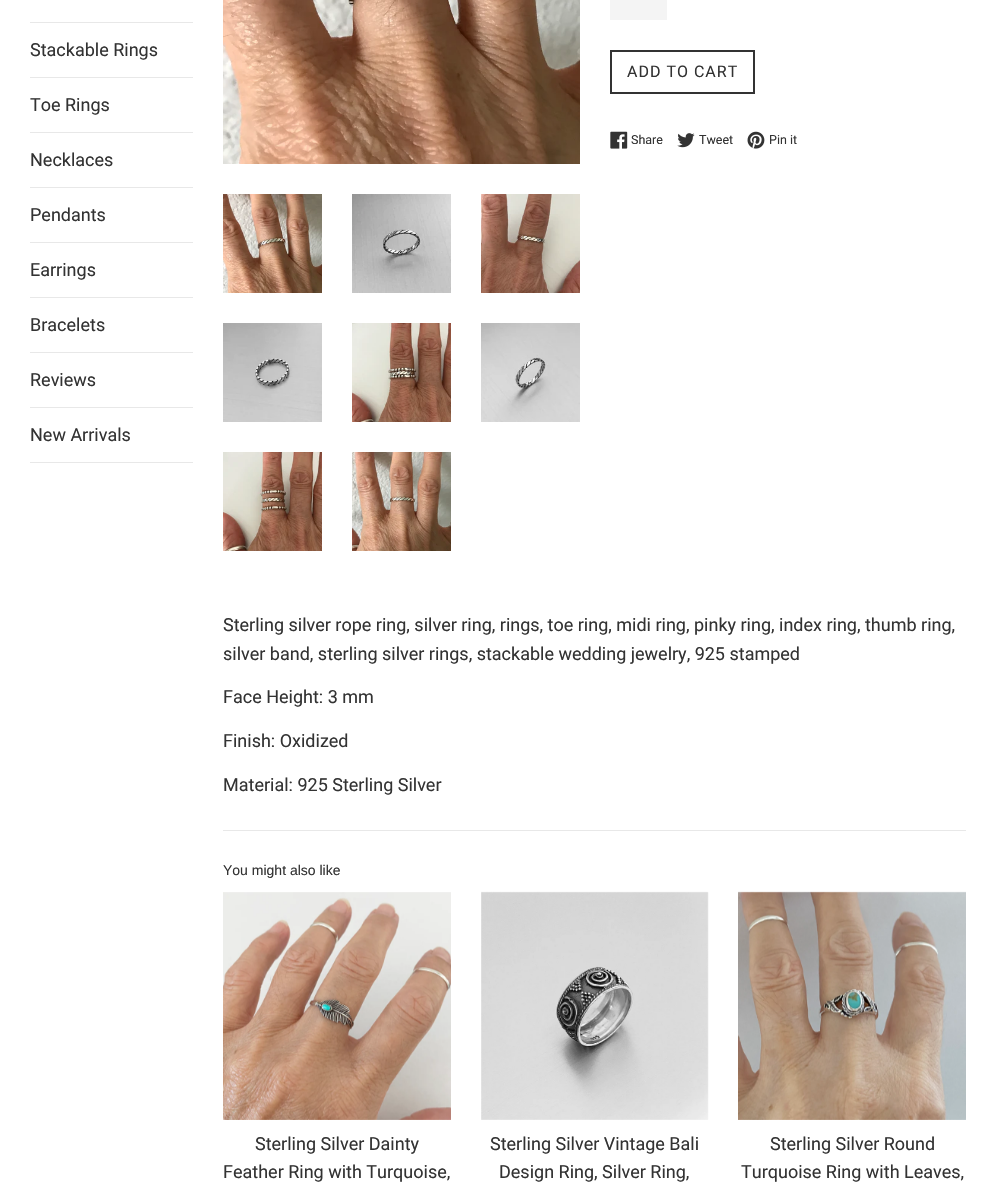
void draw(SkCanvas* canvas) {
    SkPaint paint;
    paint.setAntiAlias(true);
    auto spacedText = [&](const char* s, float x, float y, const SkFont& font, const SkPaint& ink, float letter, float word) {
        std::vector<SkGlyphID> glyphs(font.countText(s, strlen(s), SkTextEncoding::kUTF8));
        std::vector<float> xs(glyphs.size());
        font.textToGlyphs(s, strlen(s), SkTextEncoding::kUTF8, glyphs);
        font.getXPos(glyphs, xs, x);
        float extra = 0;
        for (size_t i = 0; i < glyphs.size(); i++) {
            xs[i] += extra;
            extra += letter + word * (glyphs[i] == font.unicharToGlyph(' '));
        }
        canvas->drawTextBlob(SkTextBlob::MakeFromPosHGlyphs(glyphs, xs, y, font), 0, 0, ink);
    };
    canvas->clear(0xFFFFFFFF);
    paint.setColor(0xFFE8E8E8);
    canvas->drawRect(SkRect::MakeXYWH(30, 22, 163, 1), paint);
    canvas->drawRect(SkRect::MakeXYWH(30, 77, 163, 1), paint);
    SkFont font1(fontMgr->matchFamilyStyle("Roboto", SkFontStyle::Normal()), 18);
    font1.setSubpixel(true);
    paint.setColor(0xFF333333);
    canvas->drawString("Stackable Rings", 30, 56, font1, paint);
    paint.setColor(0xFFE8E8E8);
    canvas->drawRect(SkRect::MakeXYWH(30, 132, 163, 1), paint);
    paint.setColor(0xFF333333);
    canvas->drawString("Toe Rings", 30, 111, font1, paint);
    paint.setColor(0xFFE8E8E8);
    canvas->drawRect(SkRect::MakeXYWH(30, 187, 163, 1), paint);
    paint.setColor(0xFF333333);
    canvas->drawString("Necklaces", 30, 166, font1, paint);
    paint.setColor(0xFFE8E8E8);
    canvas->drawRect(SkRect::MakeXYWH(30, 242, 163, 1), paint);
    paint.setColor(0xFF333333);
    canvas->drawString("Pendants", 30, 221, font1, paint);
    paint.setColor(0xFFE8E8E8);
    canvas->drawRect(SkRect::MakeXYWH(30, 297, 163, 1), paint);
    paint.setColor(0xFF333333);
    canvas->drawString("Earrings", 30, 276, font1, paint);
    paint.setColor(0xFFE8E8E8);
    canvas->drawRect(SkRect::MakeXYWH(30, 352, 163, 1), paint);
    paint.setColor(0xFF333333);
    canvas->drawString("Bracelets", 30, 331, font1, paint);
    paint.setColor(0xFFE8E8E8);
    canvas->drawRect(SkRect::MakeXYWH(30, 407, 163, 1), paint);
    paint.setColor(0xFF333333);
    canvas->drawString("Reviews", 30, 386, font1, paint);
    paint.setColor(0xFFE8E8E8);
    canvas->drawRect(SkRect::MakeXYWH(30, 462, 163, 1), paint);
    paint.setColor(0xFF333333);
    canvas->drawString("New Arrivals", 30, 441, font1, paint);
    canvas->drawImageRect(SkImages::DeferredFromEncodedData(SkData::MakeFromFileName("img1.png")), SkRect::MakeXYWH(223, 0, 357, 164), SkSamplingOptions());
    canvas->drawImageRect(SkImages::DeferredFromEncodedData(SkData::MakeFromFileName("img2.png")), SkRect::MakeXYWH(223, 194, 99, 99), SkSamplingOptions());
    canvas->drawImageRect(SkImages::DeferredFromEncodedData(SkData::MakeFromFileName("img3.png")), SkRect::MakeXYWH(352, 194, 99, 99), SkSamplingOptions());
    canvas->drawImageRect(SkImages::DeferredFromEncodedData(SkData::MakeFromFileName("img4.png")), SkRect::MakeXYWH(481, 194, 99, 99), SkSamplingOptions());
    canvas->drawImageRect(SkImages::DeferredFromEncodedData(SkData::MakeFromFileName("img5.png")), SkRect::MakeXYWH(223, 323, 99, 99), SkSamplingOptions());
    canvas->drawImageRect(SkImages::DeferredFromEncodedData(SkData::MakeFromFileName("img6.png")), SkRect::MakeXYWH(352, 323, 99, 99), SkSamplingOptions());
    canvas->drawImageRect(SkImages::DeferredFromEncodedData(SkData::MakeFromFileName("img7.png")), SkRect::MakeXYWH(481, 323, 99, 99), SkSamplingOptions());
    canvas->drawImageRect(SkImages::DeferredFromEncodedData(SkData::MakeFromFileName("img8.png")), SkRect::MakeXYWH(223, 452, 99, 99), SkSamplingOptions());
    canvas->drawImageRect(SkImages::DeferredFromEncodedData(SkData::MakeFromFileName("img9.png")), SkRect::MakeXYWH(352, 452, 99, 99), SkSamplingOptions());
    paint.setColor(0xFFF4F4F4);
    canvas->drawRect(SkRect::MakeXYWH(610, 0, 57, 20), paint);
    paint.setStyle(SkPaint::kStroke_Style);
    paint.setStrokeWidth(2);
    paint.setColor(0xFF333333);
    canvas->drawRect(SkRect::MakeXYWH(611, 51, 143, 42), paint);
    SkFont font2(fontMgr->matchFamilyStyle("Roboto", SkFontStyle::Normal()), 16);
    font2.setSubpixel(true);
    paint.setStyle(SkPaint::kFill_Style);
    spacedText("ADD TO CART", 627, 77, font2, paint, 1, 0);
    canvas->drawImageRect(SkImages::DeferredFromEncodedData(SkData::MakeFromFileName("img10.png")), SkRect::MakeXYWH(610, 131, 18, 18), SkSamplingOptions());
    SkFont font3(fontMgr->matchFamilyStyle("Roboto", SkFontStyle::Normal()), 12.5f);
    font3.setSubpixel(true);
    canvas->drawString("Share", 631, 144, font3, paint);
    canvas->drawImageRect(SkImages::DeferredFromEncodedData(SkData::MakeFromFileName("img11.png")), SkRect::MakeXYWH(677, 133, 18, 15), SkSamplingOptions());
    canvas->drawString("Tweet", 699, 144, font3, paint);
    canvas->drawImageRect(SkImages::DeferredFromEncodedData(SkData::MakeFromFileName("img12.png")), SkRect::MakeXYWH(747, 131, 18, 18), SkSamplingOptions());
    canvas->drawString("Pin it", 769, 144, font3, paint);
    canvas->drawString("Sterling silver rope ring, silver ring, rings, toe ring, midi ring, pinky ring, index ring, thumb ring,", 223, 631, font1, paint);
    canvas->drawString("silver band, sterling silver rings, stackable wedding jewelry, 925 stamped", 223, 660, font1, paint);
    canvas->drawString("Face Height: 3 mm", 223, 703, font1, paint);
    canvas->drawString("Finish: Oxidized", 223, 747, font1, paint);
    canvas->drawString("Material: 925 Sterling Silver", 223, 791, font1, paint);
    paint.setColor(0xFFE8E8E8);
    canvas->drawRect(SkRect::MakeXYWH(223, 830, 743, 1), paint);
    SkFont font4(fontMgr->matchFamilyStyle("Liberation Sans", SkFontStyle::Normal()), 14);
    font4.setSubpixel(true);
    paint.setColor(0xFF333333);
    canvas->drawString("You might also like", 223, 875, font4, paint);
    canvas->drawImageRect(SkImages::DeferredFromEncodedData(SkData::MakeFromFileName("img13.png")), SkRect::MakeXYWH(223, 892, 228, 228), SkSamplingOptions());
    canvas->drawString("Sterling Silver Dainty", 255, 1150, font1, paint);
    canvas->drawString("Feather Ring with Turquoise,", 223, 1178, font1, paint);
    canvas->drawImageRect(SkImages::DeferredFromEncodedData(SkData::MakeFromFileName("img14.png")), SkRect::MakeXYWH(481, 891, 228, 229), SkSamplingOptions());
    canvas->drawString("Sterling Silver Vintage Bali", 490, 1150, font1, paint);
    canvas->drawString("Design Ring, Silver Ring,", 499, 1178, font1, paint);
    canvas->drawImageRect(SkImages::DeferredFromEncodedData(SkData::MakeFromFileName("img15.png")), SkRect::MakeXYWH(738, 891, 228, 229), SkSamplingOptions());
    canvas->drawString("Sterling Silver Round", 770, 1150, font1, paint);
    canvas->drawString("Turquoise Ring with Leaves,", 741, 1178, font1, paint);
}
